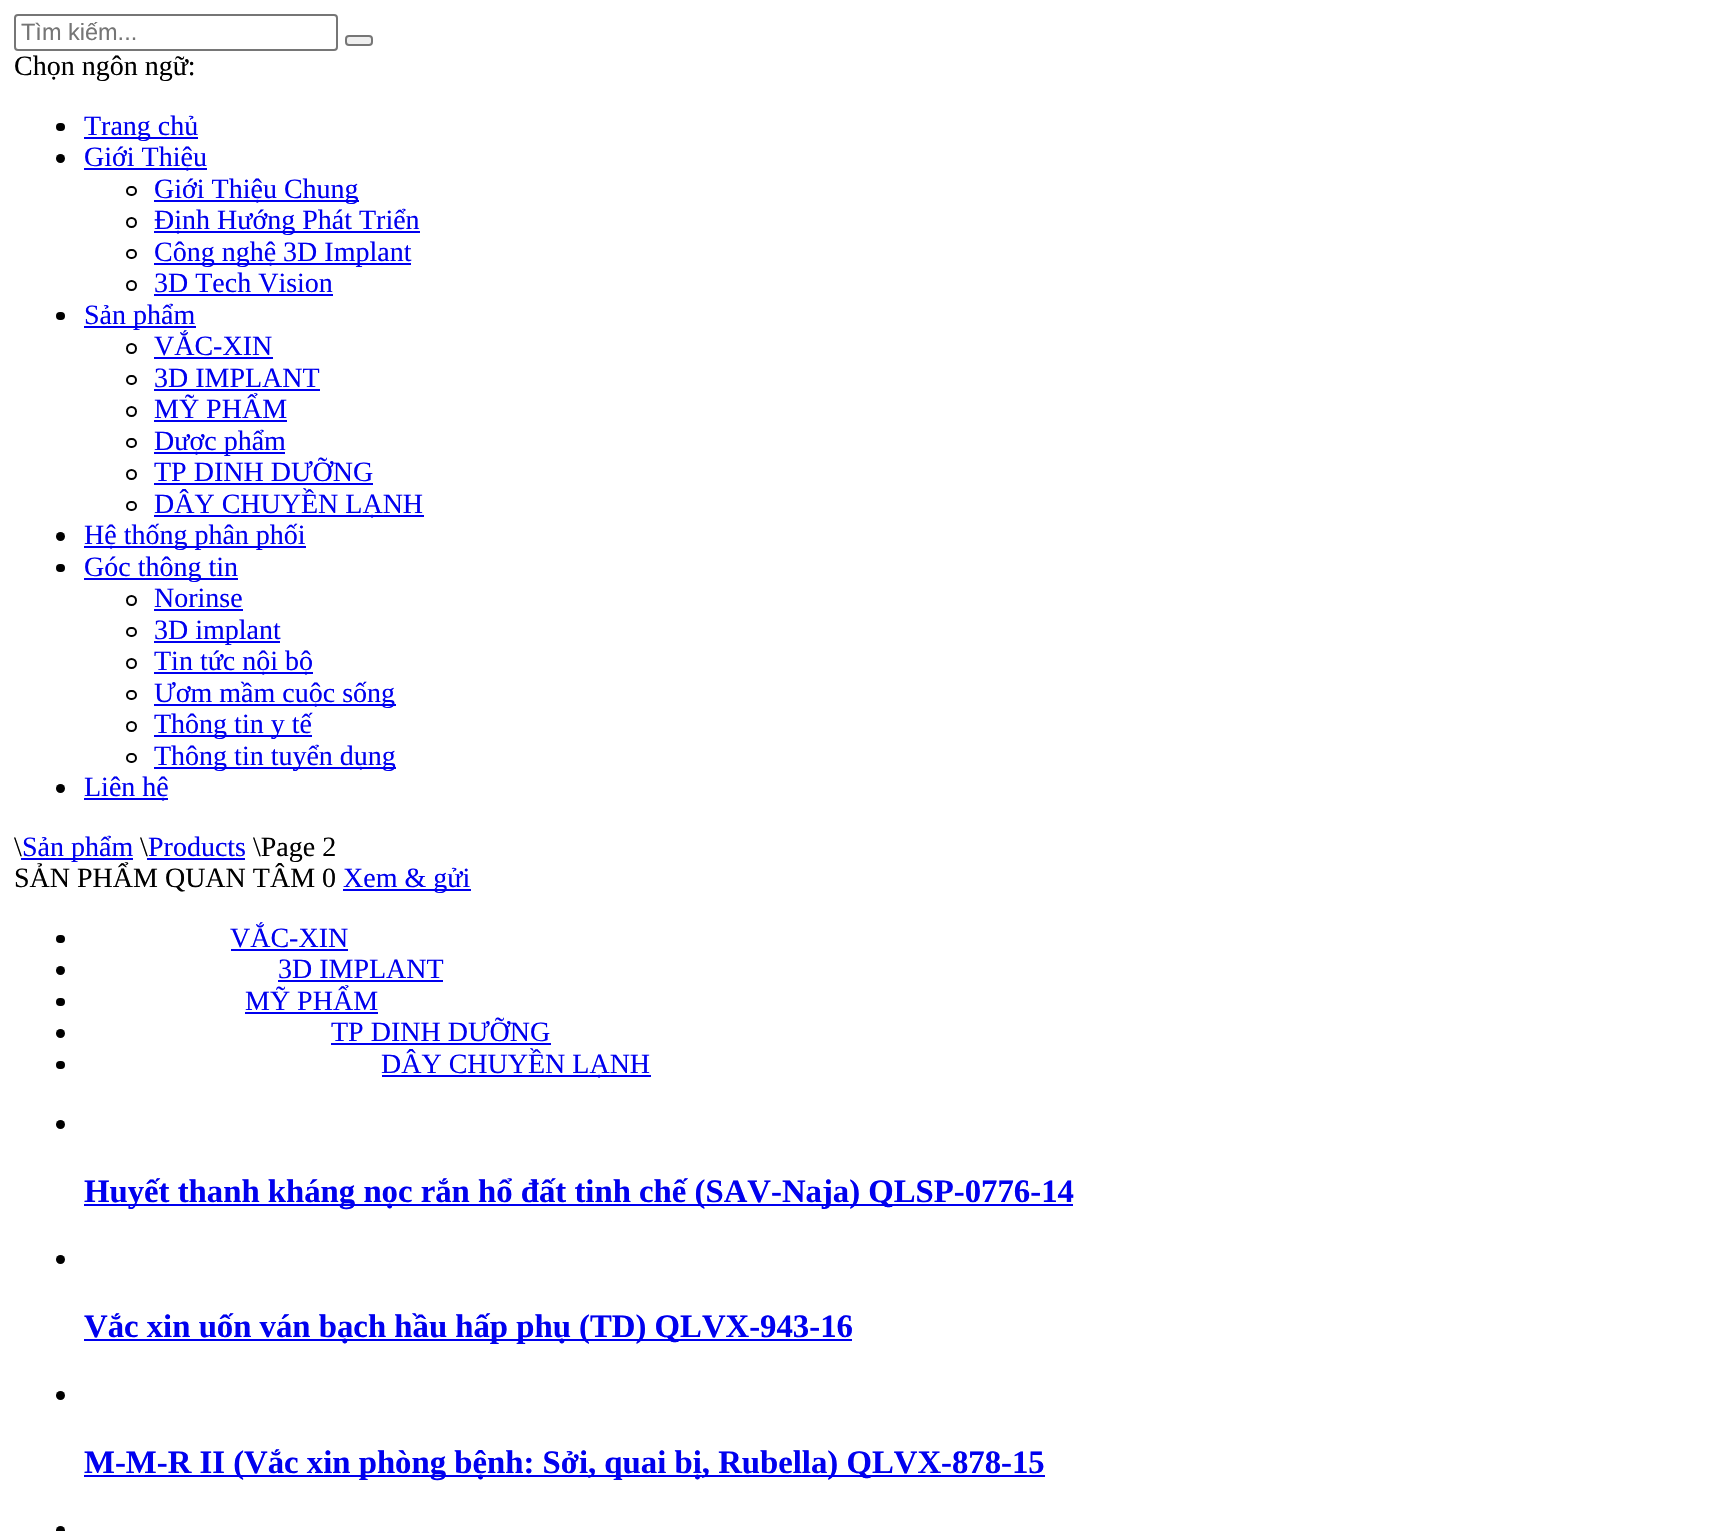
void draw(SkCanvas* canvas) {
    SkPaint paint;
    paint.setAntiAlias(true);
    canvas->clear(0xFFFFFFFF);
    paint.setStyle(SkPaint::kStroke_Style);
    paint.setStrokeWidth(2);
    paint.setColor(0xFF767676);
    canvas->drawRoundRect(SkRect::MakeXYWH(15, 15, 322, 35), 3, 3, paint);
    SkFont font1(fontMgr->matchFamilyStyle("Liberation Sans", SkFontStyle::Normal()), 23.5f);
    font1.setSubpixel(true);
    paint.setStyle(SkPaint::kFill_Style);
    paint.setColor(0xFF757575);
    canvas->drawString("Tìm kiếm...", 21, 40, font1, paint);
    paint.setColor(0xFFEFEFEF);
    canvas->drawRoundRect(SkRect::MakeXYWH(346, 36, 26, 9), 3, 3, paint);
    paint.setStyle(SkPaint::kStroke_Style);
    paint.setColor(0xFF767676);
    canvas->drawRoundRect(SkRect::MakeXYWH(346, 36, 26, 9), 3, 3, paint);
    SkFont font2(fontMgr->matchFamilyStyle("Liberation Serif", SkFontStyle::Normal()), 28);
    font2.setSubpixel(true);
    paint.setStyle(SkPaint::kFill_Style);
    paint.setColor(0xFF000000);
    canvas->drawString("Chọn ngôn ngữ:", 14, 75, font2, paint);
    canvas->drawRoundRect(SkRect::MakeXYWH(56, 123, 9, 8), 4, 4, paint);
    paint.setColor(0xFF0000EE);
    canvas->drawRect(SkRect::MakeXYWH(84, 137, 114, 2), paint);
    canvas->drawString("Trang chủ", 84, 135, font2, paint);
    paint.setColor(0xFF000000);
    canvas->drawCircle(60.5f, 158.5f, 4.5f, paint);
    paint.setColor(0xFF0000EE);
    canvas->drawRect(SkRect::MakeXYWH(84, 168, 123, 2), paint);
    canvas->drawString("Giới Thiệu", 84, 166, font2, paint);
    paint.setStyle(SkPaint::kStroke_Style);
    paint.setColor(0xFF000000);
    canvas->drawRoundRect(SkRect::MakeXYWH(127, 187, 9, 8), 4, 4, paint);
    paint.setStyle(SkPaint::kFill_Style);
    paint.setColor(0xFF0000EE);
    canvas->drawRect(SkRect::MakeXYWH(154, 200, 205, 2), paint);
    canvas->drawString("Giới Thiệu Chung", 154, 198, font2, paint);
    paint.setStyle(SkPaint::kStroke_Style);
    paint.setColor(0xFF000000);
    canvas->drawCircle(131.5f, 222.5f, 4.5f, paint);
    paint.setStyle(SkPaint::kFill_Style);
    paint.setColor(0xFF0000EE);
    canvas->drawRect(SkRect::MakeXYWH(154, 231, 266, 2), paint);
    canvas->drawString("Định Hướng Phát Triển", 154, 229, font2, paint);
    paint.setStyle(SkPaint::kStroke_Style);
    paint.setColor(0xFF000000);
    canvas->drawRoundRect(SkRect::MakeXYWH(127, 250, 9, 8), 4, 4, paint);
    paint.setStyle(SkPaint::kFill_Style);
    paint.setColor(0xFF0000EE);
    canvas->drawRect(SkRect::MakeXYWH(154, 263, 257, 2), paint);
    canvas->drawString("Công nghệ 3D Implant", 154, 261, font2, paint);
    paint.setStyle(SkPaint::kStroke_Style);
    paint.setColor(0xFF000000);
    canvas->drawCircle(131.5f, 285.5f, 4.5f, paint);
    paint.setStyle(SkPaint::kFill_Style);
    paint.setColor(0xFF0000EE);
    canvas->drawString("3D Tech Vision", 154, 292, font2, paint);
    canvas->drawRect(SkRect::MakeXYWH(154, 294, 179, 2), paint);
    paint.setColor(0xFF000000);
    canvas->drawRoundRect(SkRect::MakeXYWH(56, 312, 9, 8), 4, 4, paint);
    paint.setColor(0xFF0000EE);
    canvas->drawRect(SkRect::MakeXYWH(84, 326, 112, 2), paint);
    canvas->drawString("Sản phẩm", 84, 324, font2, paint);
    paint.setStyle(SkPaint::kStroke_Style);
    paint.setColor(0xFF000000);
    canvas->drawCircle(131.5f, 348.5f, 4.5f, paint);
    paint.setStyle(SkPaint::kFill_Style);
    paint.setColor(0xFF0000EE);
    canvas->drawString("VẮC-XIN", 154, 355, font2, paint);
    canvas->drawRect(SkRect::MakeXYWH(154, 357, 119, 2), paint);
    paint.setStyle(SkPaint::kStroke_Style);
    paint.setColor(0xFF000000);
    canvas->drawRoundRect(SkRect::MakeXYWH(127, 376, 9, 8), 4, 4, paint);
    paint.setStyle(SkPaint::kFill_Style);
    paint.setColor(0xFF0000EE);
    canvas->drawString("3D IMPLANT", 154, 387, font2, paint);
    canvas->drawRect(SkRect::MakeXYWH(154, 389, 166, 2), paint);
    paint.setStyle(SkPaint::kStroke_Style);
    paint.setColor(0xFF000000);
    canvas->drawCircle(131.5f, 411.5f, 4.5f, paint);
    paint.setStyle(SkPaint::kFill_Style);
    paint.setColor(0xFF0000EE);
    canvas->drawString("MỸ PHẨM", 154, 418, font2, paint);
    canvas->drawRect(SkRect::MakeXYWH(154, 420, 133, 2), paint);
    paint.setStyle(SkPaint::kStroke_Style);
    paint.setColor(0xFF000000);
    canvas->drawRoundRect(SkRect::MakeXYWH(127, 439, 9, 8), 4, 4, paint);
    paint.setStyle(SkPaint::kFill_Style);
    paint.setColor(0xFF0000EE);
    canvas->drawRect(SkRect::MakeXYWH(154, 452, 131, 2), paint);
    canvas->drawString("Dược phẩm", 154, 450, font2, paint);
    paint.setStyle(SkPaint::kStroke_Style);
    paint.setColor(0xFF000000);
    canvas->drawCircle(131.5f, 474.5f, 4.5f, paint);
    paint.setStyle(SkPaint::kFill_Style);
    paint.setColor(0xFF0000EE);
    canvas->drawString("TP DINH DƯỠNG", 154, 481, font2, paint);
    canvas->drawRect(SkRect::MakeXYWH(154, 483, 219, 2), paint);
    paint.setStyle(SkPaint::kStroke_Style);
    paint.setColor(0xFF000000);
    canvas->drawRoundRect(SkRect::MakeXYWH(127, 502, 9, 8), 4, 4, paint);
    paint.setStyle(SkPaint::kFill_Style);
    paint.setColor(0xFF0000EE);
    canvas->drawRect(SkRect::MakeXYWH(154, 515, 270, 2), paint);
    canvas->drawString("DÂY CHUYỀN LẠNH", 154, 513, font2, paint);
    paint.setColor(0xFF000000);
    canvas->drawCircle(60.5f, 536.5f, 4.5f, paint);
    paint.setColor(0xFF0000EE);
    canvas->drawRect(SkRect::MakeXYWH(84, 546, 222, 2), paint);
    canvas->drawString("Hệ thống phân phối", 84, 544, font2, paint);
    paint.setColor(0xFF000000);
    canvas->drawRoundRect(SkRect::MakeXYWH(56, 564, 9, 8), 4, 4, paint);
    paint.setColor(0xFF0000EE);
    canvas->drawRect(SkRect::MakeXYWH(84, 578, 154, 2), paint);
    canvas->drawString("Góc thông tin", 84, 576, font2, paint);
    paint.setStyle(SkPaint::kStroke_Style);
    paint.setColor(0xFF000000);
    canvas->drawCircle(131.5f, 600.5f, 4.5f, paint);
    paint.setStyle(SkPaint::kFill_Style);
    paint.setColor(0xFF0000EE);
    canvas->drawString("Norinse", 154, 607, font2, paint);
    canvas->drawRect(SkRect::MakeXYWH(154, 609, 89, 2), paint);
    paint.setStyle(SkPaint::kStroke_Style);
    paint.setColor(0xFF000000);
    canvas->drawRoundRect(SkRect::MakeXYWH(127, 628, 9, 8), 4, 4, paint);
    paint.setStyle(SkPaint::kFill_Style);
    paint.setColor(0xFF0000EE);
    canvas->drawRect(SkRect::MakeXYWH(154, 641, 126, 2), paint);
    canvas->drawString("3D implant", 154, 639, font2, paint);
    paint.setStyle(SkPaint::kStroke_Style);
    paint.setColor(0xFF000000);
    canvas->drawCircle(131.5f, 663.5f, 4.5f, paint);
    paint.setStyle(SkPaint::kFill_Style);
    paint.setColor(0xFF0000EE);
    canvas->drawRect(SkRect::MakeXYWH(154, 672, 159, 2), paint);
    canvas->drawString("Tin tức nội bộ", 154, 670, font2, paint);
    paint.setStyle(SkPaint::kStroke_Style);
    paint.setColor(0xFF000000);
    canvas->drawRoundRect(SkRect::MakeXYWH(127, 691, 9, 8), 4, 4, paint);
    paint.setStyle(SkPaint::kFill_Style);
    paint.setColor(0xFF0000EE);
    canvas->drawRect(SkRect::MakeXYWH(154, 704, 242, 2), paint);
    canvas->drawString("Ươm mầm cuộc sống", 154, 702, font2, paint);
    paint.setStyle(SkPaint::kStroke_Style);
    paint.setColor(0xFF000000);
    canvas->drawCircle(131.5f, 726.5f, 4.5f, paint);
    paint.setStyle(SkPaint::kFill_Style);
    paint.setColor(0xFF0000EE);
    canvas->drawRect(SkRect::MakeXYWH(154, 735, 158, 2), paint);
    canvas->drawString("Thông tin y tế", 154, 733, font2, paint);
    paint.setStyle(SkPaint::kStroke_Style);
    paint.setColor(0xFF000000);
    canvas->drawRoundRect(SkRect::MakeXYWH(127, 754, 9, 8), 4, 4, paint);
    paint.setStyle(SkPaint::kFill_Style);
    paint.setColor(0xFF0000EE);
    canvas->drawRect(SkRect::MakeXYWH(154, 767, 242, 2), paint);
    canvas->drawString("Thông tin tuyển dụng", 154, 765, font2, paint);
    paint.setColor(0xFF000000);
    canvas->drawCircle(60.5f, 788.5f, 4.5f, paint);
    paint.setColor(0xFF0000EE);
    canvas->drawRect(SkRect::MakeXYWH(84, 798, 84, 2), paint);
    canvas->drawString("Liên hệ", 84, 796, font2, paint);
    paint.setColor(0xFF000000);
    canvas->drawString("\\", 14, 856, font2, paint);
    paint.setColor(0xFF0000EE);
    canvas->drawRect(SkRect::MakeXYWH(21, 858, 112, 2), paint);
    canvas->drawString("Sản phẩm", 22, 856, font2, paint);
    paint.setColor(0xFF000000);
    canvas->drawString("\\", 140, 856, font2, paint);
    paint.setColor(0xFF0000EE);
    canvas->drawString("Products", 148, 856, font2, paint);
    canvas->drawRect(SkRect::MakeXYWH(147, 858, 98, 2), paint);
    paint.setColor(0xFF000000);
    canvas->drawString("\\Page 2", 253, 856, font2, paint);
    canvas->drawString("SẢN PHẨM QUAN TÂM 0", 14, 887, font2, paint);
    paint.setColor(0xFF0000EE);
    canvas->drawRect(SkRect::MakeXYWH(343, 889, 128, 2), paint);
    canvas->drawString("Xem & gửi", 343, 887, font2, paint);
    paint.setColor(0xFF000000);
    canvas->drawRoundRect(SkRect::MakeXYWH(56, 935, 9, 8), 4, 4, paint);
    paint.setColor(0xFF0000EE);
    canvas->drawString("VẮC-XIN", 230, 947, font2, paint);
    canvas->drawRect(SkRect::MakeXYWH(231, 949, 117, 2), paint);
    paint.setColor(0xFF000000);
    canvas->drawCircle(60.5f, 970.5f, 4.5f, paint);
    paint.setColor(0xFF0000EE);
    canvas->drawString("3D IMPLANT", 278, 978, font2, paint);
    canvas->drawRect(SkRect::MakeXYWH(278, 980, 165, 2), paint);
    paint.setColor(0xFF000000);
    canvas->drawRoundRect(SkRect::MakeXYWH(56, 998, 9, 8), 4, 4, paint);
    paint.setColor(0xFF0000EE);
    canvas->drawString("MỸ PHẨM", 245, 1010, font2, paint);
    canvas->drawRect(SkRect::MakeXYWH(245, 1012, 133, 2), paint);
    paint.setColor(0xFF000000);
    canvas->drawCircle(60.5f, 1033.5f, 4.5f, paint);
    paint.setColor(0xFF0000EE);
    canvas->drawString("TP DINH DƯỠNG", 331, 1041, font2, paint);
    canvas->drawRect(SkRect::MakeXYWH(331, 1043, 220, 2), paint);
    paint.setColor(0xFF000000);
    canvas->drawRoundRect(SkRect::MakeXYWH(56, 1061, 9, 8), 4, 4, paint);
    paint.setColor(0xFF0000EE);
    canvas->drawRect(SkRect::MakeXYWH(382, 1075, 269, 2), paint);
    canvas->drawString("DÂY CHUYỀN LẠNH", 381, 1073, font2, paint);
    paint.setColor(0xFF000000);
    canvas->drawCircle(60.5f, 1124.5f, 4.5f, paint);
    paint.setColor(0xFF0000EE);
    canvas->drawRect(SkRect::MakeXYWH(84, 1204, 989, 2), paint);
    SkFont font3(fontMgr->matchFamilyStyle("Liberation Serif", SkFontStyle::Bold()), 32.75f);
    font3.setSubpixel(true);
    canvas->drawString("Huyết thanh kháng nọc rắn hổ đất tinh chế (SAV-Naja) QLSP-0776-14", 84, 1202, font3, paint);
    paint.setColor(0xFF000000);
    canvas->drawCircle(60.5f, 1259.5f, 4.5f, paint);
    paint.setColor(0xFF0000EE);
    canvas->drawRect(SkRect::MakeXYWH(84, 1339, 768, 2), paint);
    canvas->drawString("Vắc xin uốn ván bạch hầu hấp phụ (TD) QLVX-943-16", 84, 1337, font3, paint);
    paint.setColor(0xFF000000);
    canvas->drawCircle(60.5f, 1395.5f, 4.5f, paint);
    paint.setColor(0xFF0000EE);
    canvas->drawRect(SkRect::MakeXYWH(84, 1475, 961, 2), paint);
    canvas->drawString("M-M-R II (Vắc xin phòng bệnh: Sởi, quai bị, Rubella) QLVX-878-15", 84, 1473, font3, paint);
    paint.setColor(0xFF000000);
    canvas->drawCircle(60.5f, 1530.5f, 4.5f, paint);
}
